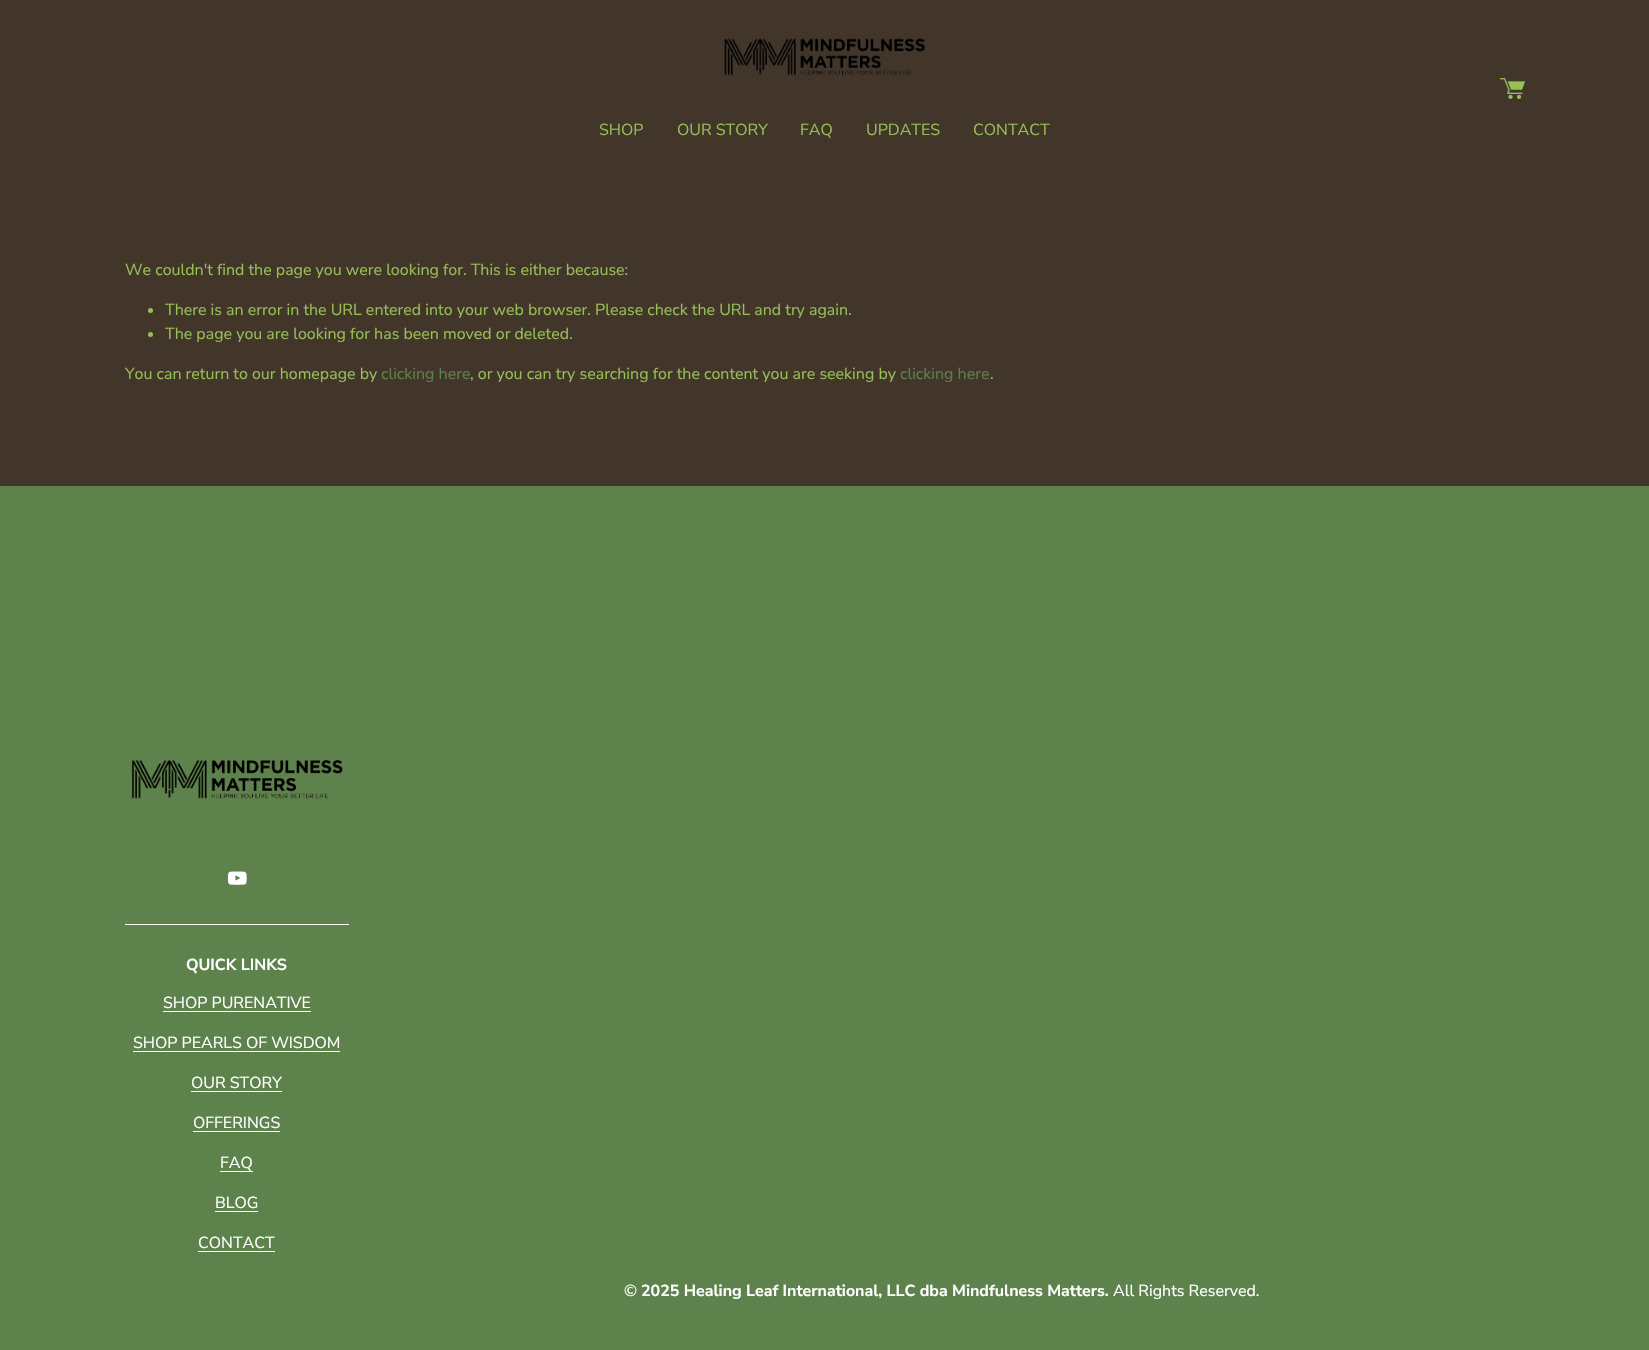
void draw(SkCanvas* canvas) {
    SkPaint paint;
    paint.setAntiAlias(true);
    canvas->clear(0xFF42362B);
    canvas->drawImageRect(SkImages::DeferredFromEncodedData(SkData::MakeFromFileName("img1.png")), SkRect::MakeXYWH(1500, 78, 25, 21), SkSamplingOptions());
    canvas->drawImageRect(SkImages::DeferredFromEncodedData(SkData::MakeFromFileName("img2.png")), SkRect::MakeXYWH(724, 38, 201, 38), SkSamplingOptions());
    SkFont font1(fontMgr->matchFamilyStyle("Nunito Sans", SkFontStyle::Normal()), 16);
    font1.setSubpixel(true);
    paint.setColor(0xFF96BF54);
    canvas->drawString("SHOP", 599, 135, font1, paint);
    canvas->drawString("OUR STORY", 677, 135, font1, paint);
    canvas->drawString("FAQ", 800, 135, font1, paint);
    canvas->drawString("UPDATES", 866, 135, font1, paint);
    canvas->drawString("CONTACT", 973, 135, font1, paint);
    canvas->drawString("We couldn't find the page you were looking for. This is either because:", 125, 275, font1, paint);
    canvas->drawCircle(150.5f, 310.5f, 2.5f, paint);
    canvas->drawString("There is an error in the URL entered into your web browser. Please check the URL and try again.", 165, 315, font1, paint);
    canvas->drawCircle(150.5f, 334.5f, 2.5f, paint);
    canvas->drawString("The page you are looking for has been moved or deleted.", 165, 339, font1, paint);
    canvas->drawString("You can return to our homepage by", 125, 379, font1, paint);
    paint.setColor(0xFF5E824B);
    canvas->drawString("clicking here", 381, 379, font1, paint);
    paint.setColor(0xFF96BF54);
    canvas->drawString(", or you can try searching for the content you are seeking by", 470, 379, font1, paint);
    paint.setColor(0xFF5E824B);
    canvas->drawString("clicking here", 900, 379, font1, paint);
    paint.setColor(0xFF96BF54);
    canvas->drawString(".", 990, 379, font1, paint);
    paint.setColor(0xFF5E824B);
    canvas->drawRect(SkRect::MakeXYWH(0, 486, 1649, 864), paint);
    canvas->drawImageRect(SkImages::DeferredFromEncodedData(SkData::MakeFromFileName("img3.png")), SkRect::MakeXYWH(131, 760, 212, 39), SkSamplingOptions());
    canvas->drawImageRect(SkImages::DeferredFromEncodedData(SkData::MakeFromFileName("img4.png")), SkRect::MakeXYWH(227, 871, 20, 14), SkSamplingOptions());
    paint.setColor(0xFFFFFFFF);
    canvas->drawRect(SkRect::MakeXYWH(125, 924, 224, 1), paint);
    SkFont font2(fontMgr->matchFamilyStyle("Nunito Sans", SkFontStyle::Bold()), 16);
    font2.setSubpixel(true);
    canvas->drawString("QUICK LINKS", 186, 970, font2, paint);
    canvas->drawString("SHOP PURENATIVE", 163, 1008, font1, paint);
    canvas->drawRect(SkRect::MakeXYWH(163, 1011, 148, 1), paint);
    canvas->drawString("SHOP PEARLS OF WISDOM", 133, 1048, font1, paint);
    canvas->drawRect(SkRect::MakeXYWH(133, 1051, 207, 1), paint);
    canvas->drawString("OUR STORY", 191, 1088, font1, paint);
    canvas->drawRect(SkRect::MakeXYWH(191, 1091, 91, 1), paint);
    canvas->drawString("OFFERINGS", 193, 1128, font1, paint);
    canvas->drawRect(SkRect::MakeXYWH(193, 1131, 87, 1), paint);
    canvas->drawRect(SkRect::MakeXYWH(220, 1171, 33, 1), paint);
    canvas->drawString("FAQ", 220, 1168, font1, paint);
    canvas->drawString("BLOG", 215, 1208, font1, paint);
    canvas->drawRect(SkRect::MakeXYWH(215, 1211, 43, 1), paint);
    canvas->drawString("CONTACT", 198, 1248, font1, paint);
    canvas->drawRect(SkRect::MakeXYWH(198, 1251, 77, 1), paint);
    canvas->drawString("©", 624, 1296, font1, paint);
    canvas->drawString("2025 Healing Leaf International, LLC dba Mindfulness Matters.", 641, 1296, font2, paint);
    canvas->drawString("All Rights Reserved.", 1113, 1296, font1, paint);
}
